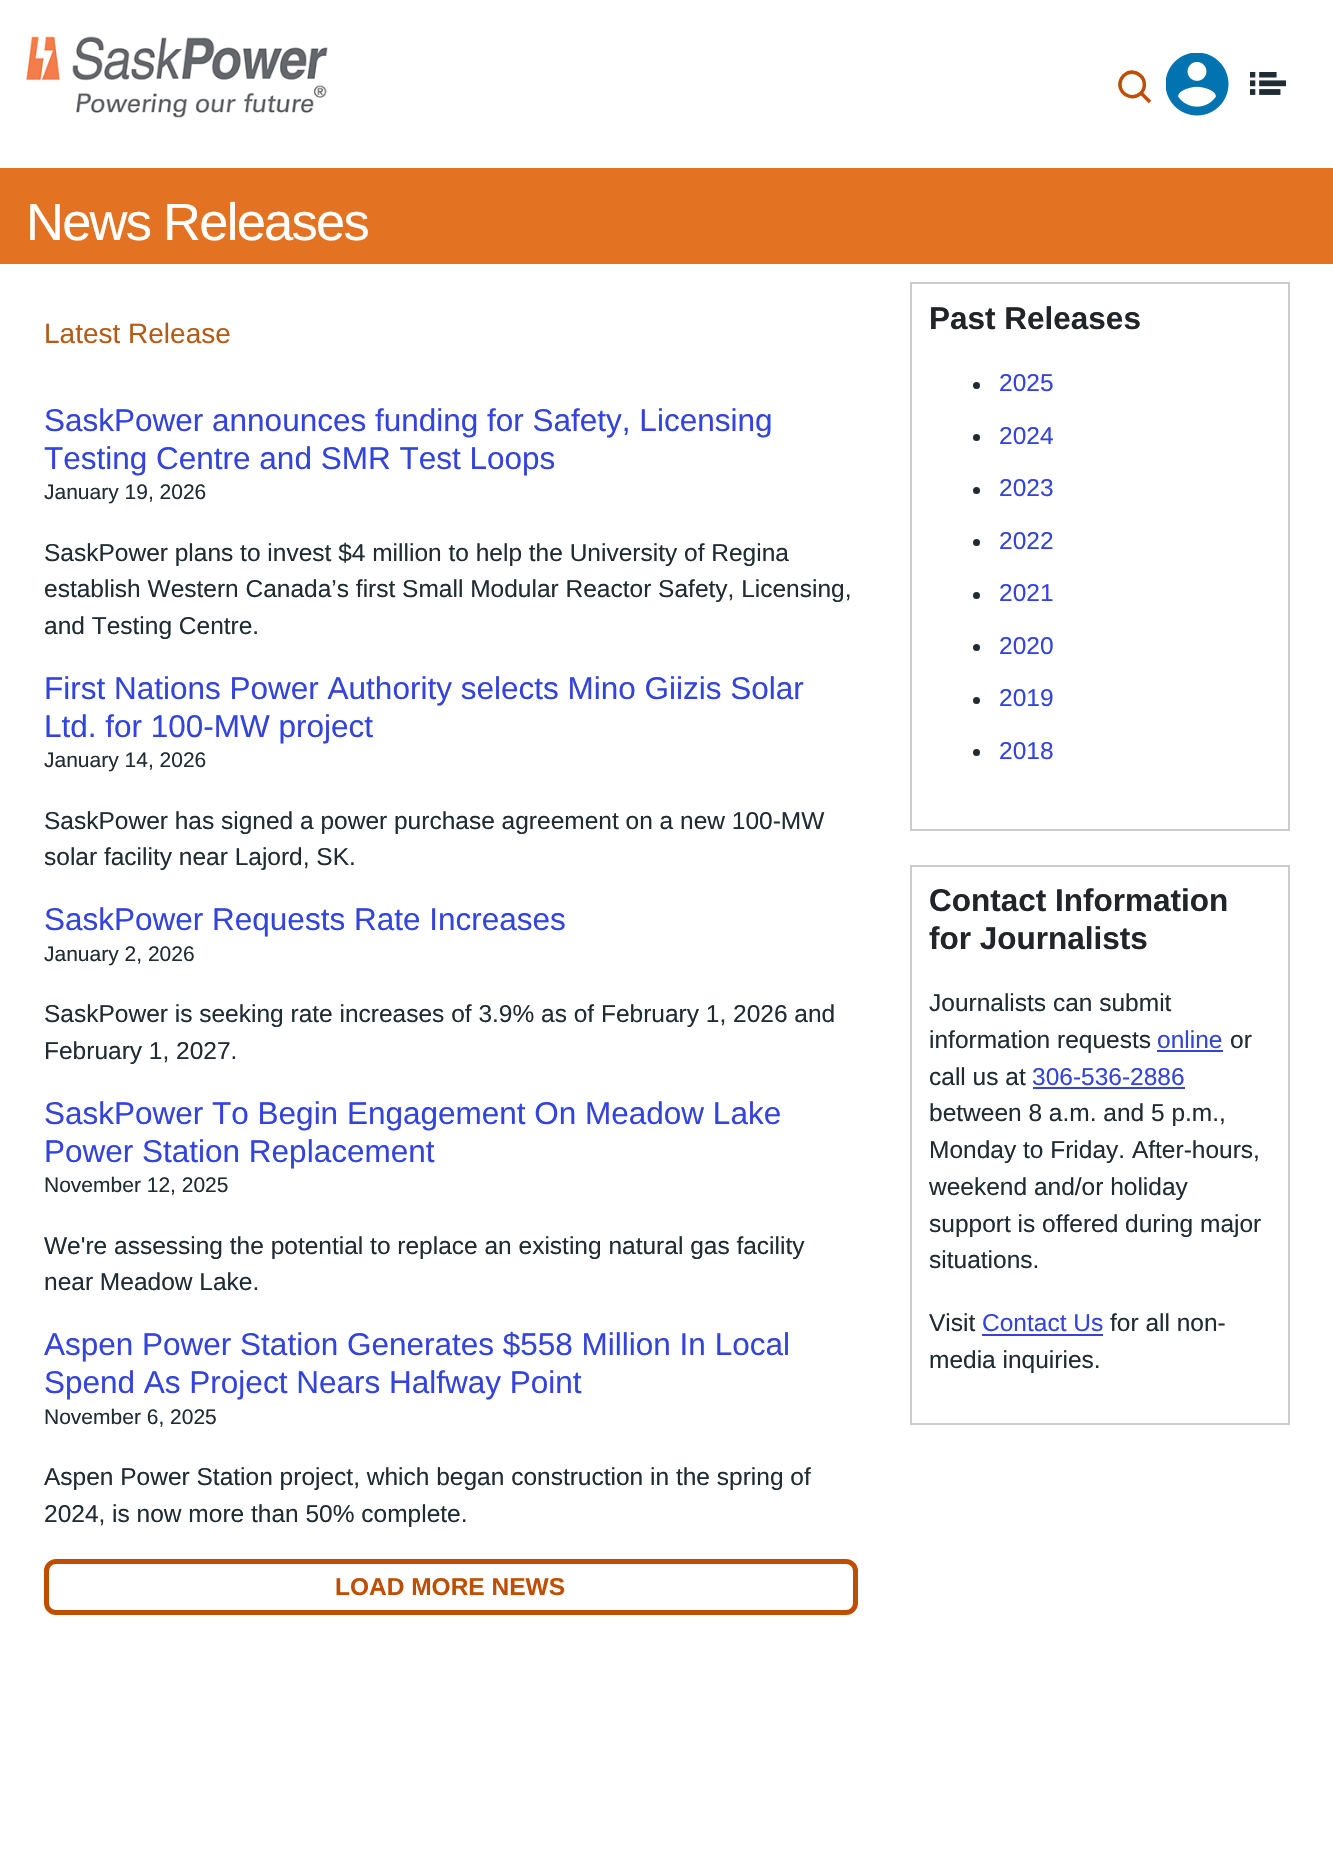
void draw(SkCanvas* canvas) {
    SkPaint paint;
    paint.setAntiAlias(true);
    auto spacedText = [&](const char* s, float x, float y, const SkFont& font, const SkPaint& ink, float letter, float word) {
        std::vector<SkGlyphID> glyphs(font.countText(s, strlen(s), SkTextEncoding::kUTF8));
        std::vector<float> xs(glyphs.size());
        font.textToGlyphs(s, strlen(s), SkTextEncoding::kUTF8, glyphs);
        font.getXPos(glyphs, xs, x);
        float extra = 0;
        for (size_t i = 0; i < glyphs.size(); i++) {
            xs[i] += extra;
            extra += letter + word * (glyphs[i] == font.unicharToGlyph(' '));
        }
        canvas->drawTextBlob(SkTextBlob::MakeFromPosHGlyphs(glyphs, xs, y, font), 0, 0, ink);
    };
    canvas->clear(0xFFFFFFFF);
    canvas->drawImageRect(SkImages::DeferredFromEncodedData(SkData::MakeFromFileName("img1.png")), SkRect::MakeXYWH(26, 36, 302, 82), SkSamplingOptions());
    paint.setStyle(SkPaint::kStroke_Style);
    paint.setStrokeWidth(3.5f);
    paint.setColor(0xFFC04E00);
    canvas->drawPath(SkPathBuilder().moveTo(1141, 93).cubicTo(1131.5f, 102.5f, 1115.5f, 92, 1121, 79.5f).cubicTo(1122, 77, 1124.5f, 74.5f, 1127.5f, 73).cubicTo(1131.5f, 71.5f, 1135.5f, 72, 1139, 74.5f).cubicTo(1145.5f, 78.5f, 1146, 88, 1141, 93).lineTo(1150, 102).close().detach(), paint);
    canvas->drawImageRect(SkImages::DeferredFromEncodedData(SkData::MakeFromFileName("img2.png")), SkRect::MakeXYWH(1166, 53, 63, 63), SkSamplingOptions());
    canvas->drawImageRect(SkImages::DeferredFromEncodedData(SkData::MakeFromFileName("img3.png")), SkRect::MakeXYWH(1250, 72, 36, 23), SkSamplingOptions());
    paint.setStyle(SkPaint::kFill_Style);
    paint.setColor(0xFFE37222);
    canvas->drawRect(SkRect::MakeXYWH(0, 168, 1333, 96), paint);
    SkFont font1(fontMgr->matchFamilyStyle("Liberation Sans", SkFontStyle::Normal()), 52.5f);
    font1.setSubpixel(true);
    paint.setColor(0xFFFFFFFF);
    spacedText("News Releases", 26, 240, font1, paint, -1.75f, 0);
    SkFont font2(fontMgr->matchFamilyStyle("Liberation Sans", SkFontStyle::Normal()), 28);
    font2.setSubpixel(true);
    paint.setColor(0xFFB65B16);
    canvas->drawString("Latest Release", 44, 343, font2, paint);
    SkFont font3(fontMgr->matchFamilyStyle("Liberation Sans", SkFontStyle::Normal()), 31.5f);
    font3.setSubpixel(true);
    paint.setColor(0xFF3344DD);
    canvas->drawString("SaskPower announces funding for Safety, Licensing", 44, 431, font3, paint);
    canvas->drawString("Testing Centre and SMR Test Loops", 44, 469, font3, paint);
    SkFont font4(fontMgr->matchFamilyStyle("Liberation Sans", SkFontStyle::Normal()), 21);
    font4.setSubpixel(true);
    paint.setColor(0xFF1F2C33);
    canvas->drawString("January 19, 2026", 44, 499, font4, paint);
    SkFont font5(fontMgr->matchFamilyStyle("Liberation Sans", SkFontStyle::Normal()), 24.5f);
    font5.setSubpixel(true);
    canvas->drawString("SaskPower plans to invest $4 million to help the University of Regina", 44, 561, font5, paint);
    canvas->drawString("establish Western Canada’s first Small Modular Reactor Safety, Licensing,", 44, 597, font5, paint);
    canvas->drawString("and Testing Centre.", 44, 634, font5, paint);
    paint.setColor(0xFF3344DD);
    canvas->drawString("First Nations Power Authority selects Mino Giizis Solar", 44, 699, font3, paint);
    canvas->drawString("Ltd. for 100-MW project", 44, 737, font3, paint);
    paint.setColor(0xFF1F2C33);
    canvas->drawString("January 14, 2026", 44, 767, font4, paint);
    canvas->drawString("SaskPower has signed a power purchase agreement on a new 100-MW", 44, 829, font5, paint);
    canvas->drawString("solar facility near Lajord, SK.", 44, 865, font5, paint);
    paint.setColor(0xFF3344DD);
    canvas->drawString("SaskPower Requests Rate Increases", 44, 930, font3, paint);
    paint.setColor(0xFF1F2C33);
    canvas->drawString("January 2, 2026", 44, 961, font4, paint);
    canvas->drawString("SaskPower is seeking rate increases of 3.9% as of February 1, 2026 and", 44, 1022, font5, paint);
    canvas->drawString("February 1, 2027.", 44, 1059, font5, paint);
    paint.setColor(0xFF3344DD);
    canvas->drawString("SaskPower To Begin Engagement On Meadow Lake", 44, 1124, font3, paint);
    canvas->drawString("Power Station Replacement", 44, 1162, font3, paint);
    paint.setColor(0xFF1F2C33);
    canvas->drawString("November 12, 2025", 44, 1192, font4, paint);
    canvas->drawString("We're assessing the potential to replace an existing natural gas facility", 44, 1254, font5, paint);
    canvas->drawString("near Meadow Lake.", 44, 1290, font5, paint);
    paint.setColor(0xFF3344DD);
    canvas->drawString("Aspen Power Station Generates $558 Million In Local", 44, 1355, font3, paint);
    canvas->drawString("Spend As Project Nears Halfway Point", 44, 1393, font3, paint);
    paint.setColor(0xFF1F2C33);
    canvas->drawString("November 6, 2025", 44, 1424, font4, paint);
    canvas->drawString("Aspen Power Station project, which began construction in the spring of", 44, 1485, font5, paint);
    canvas->drawString("2024, is now more than 50% complete.", 44, 1522, font5, paint);
    paint.setStyle(SkPaint::kStroke_Style);
    paint.setStrokeWidth(5);
    paint.setColor(0xFFC04E00);
    canvas->drawRoundRect(SkRect::MakeXYWH(46.5f, 1561.5f, 809, 51), 9.5f, 9.5f, paint);
    SkFont font6(fontMgr->matchFamilyStyle("Liberation Sans", SkFontStyle::Bold()), 24.5f);
    font6.setSubpixel(true);
    paint.setStyle(SkPaint::kFill_Style);
    canvas->drawString("LOAD MORE NEWS", 335, 1595, font6, paint);
    paint.setStyle(SkPaint::kStroke_Style);
    paint.setStrokeWidth(2);
    paint.setColor(0xFFCCCCCC);
    canvas->drawRect(SkRect::MakeXYWH(911, 283, 378, 547), paint);
    SkFont font7(fontMgr->matchFamilyStyle("Liberation Sans", SkFontStyle::Bold()), 31.5f);
    font7.setSubpixel(true);
    paint.setStyle(SkPaint::kFill_Style);
    paint.setColor(0xFF212529);
    canvas->drawString("Past Releases", 929, 329, font7, paint);
    paint.setColor(0xFF1F2C33);
    canvas->drawCircle(976.5f, 385.5f, 3.5f, paint);
    paint.setColor(0xFF3344DD);
    canvas->drawString("2025", 999, 391, font5, paint);
    paint.setColor(0xFF1F2C33);
    canvas->drawCircle(976.5f, 437.5f, 3.5f, paint);
    paint.setColor(0xFF3344DD);
    canvas->drawString("2024", 999, 444, font5, paint);
    paint.setColor(0xFF1F2C33);
    canvas->drawCircle(976.5f, 490.5f, 3.5f, paint);
    paint.setColor(0xFF3344DD);
    canvas->drawString("2023", 999, 496, font5, paint);
    paint.setColor(0xFF1F2C33);
    canvas->drawCircle(976.5f, 542.5f, 3.5f, paint);
    paint.setColor(0xFF3344DD);
    canvas->drawString("2022", 999, 549, font5, paint);
    paint.setColor(0xFF1F2C33);
    canvas->drawCircle(976.5f, 595.5f, 3.5f, paint);
    paint.setColor(0xFF3344DD);
    canvas->drawString("2021", 999, 601, font5, paint);
    paint.setColor(0xFF1F2C33);
    canvas->drawCircle(976.5f, 647.5f, 3.5f, paint);
    paint.setColor(0xFF3344DD);
    canvas->drawString("2020", 999, 654, font5, paint);
    paint.setColor(0xFF1F2C33);
    canvas->drawCircle(976.5f, 700.5f, 3.5f, paint);
    paint.setColor(0xFF3344DD);
    canvas->drawString("2019", 999, 706, font5, paint);
    paint.setColor(0xFF1F2C33);
    canvas->drawCircle(976.5f, 752.5f, 3.5f, paint);
    paint.setColor(0xFF3344DD);
    canvas->drawString("2018", 999, 759, font5, paint);
    paint.setStyle(SkPaint::kStroke_Style);
    paint.setColor(0xFFCCCCCC);
    canvas->drawRect(SkRect::MakeXYWH(911, 866, 378, 558), paint);
    paint.setStyle(SkPaint::kFill_Style);
    paint.setColor(0xFF212529);
    canvas->drawString("Contact Information", 929, 911, font7, paint);
    canvas->drawString("for Journalists", 929, 949, font7, paint);
    paint.setColor(0xFF1F2C33);
    canvas->drawString("Journalists can submit", 929, 1011, font5, paint);
    canvas->drawString("information requests", 929, 1048, font5, paint);
    paint.setColor(0xFF3344DD);
    canvas->drawString("online", 1157, 1048, font5, paint);
    canvas->drawRect(SkRect::MakeXYWH(1157, 1050, 66, 2), paint);
    paint.setColor(0xFF1F2C33);
    canvas->drawString("or", 1230, 1048, font5, paint);
    canvas->drawString("call us at", 929, 1085, font5, paint);
    paint.setColor(0xFF3344DD);
    canvas->drawString("306-536-2886", 1032, 1085, font5, paint);
    canvas->drawRect(SkRect::MakeXYWH(1033, 1087, 152, 2), paint);
    paint.setColor(0xFF1F2C33);
    canvas->drawString("between 8 a.m. and 5 p.m.,", 929, 1121, font5, paint);
    canvas->drawString("Monday to Friday. After-hours,", 929, 1158, font5, paint);
    canvas->drawString("weekend and/or holiday", 929, 1195, font5, paint);
    canvas->drawString("support is offered during major", 929, 1232, font5, paint);
    canvas->drawString("situations.", 929, 1268, font5, paint);
    canvas->drawString("Visit", 929, 1331, font5, paint);
    paint.setColor(0xFF3344DD);
    canvas->drawString("Contact Us", 982, 1331, font5, paint);
    canvas->drawRect(SkRect::MakeXYWH(982, 1334, 121, 2), paint);
    paint.setColor(0xFF1F2C33);
    canvas->drawString("for all non-", 1110, 1331, font5, paint);
    canvas->drawString("media inquiries.", 929, 1368, font5, paint);
}
